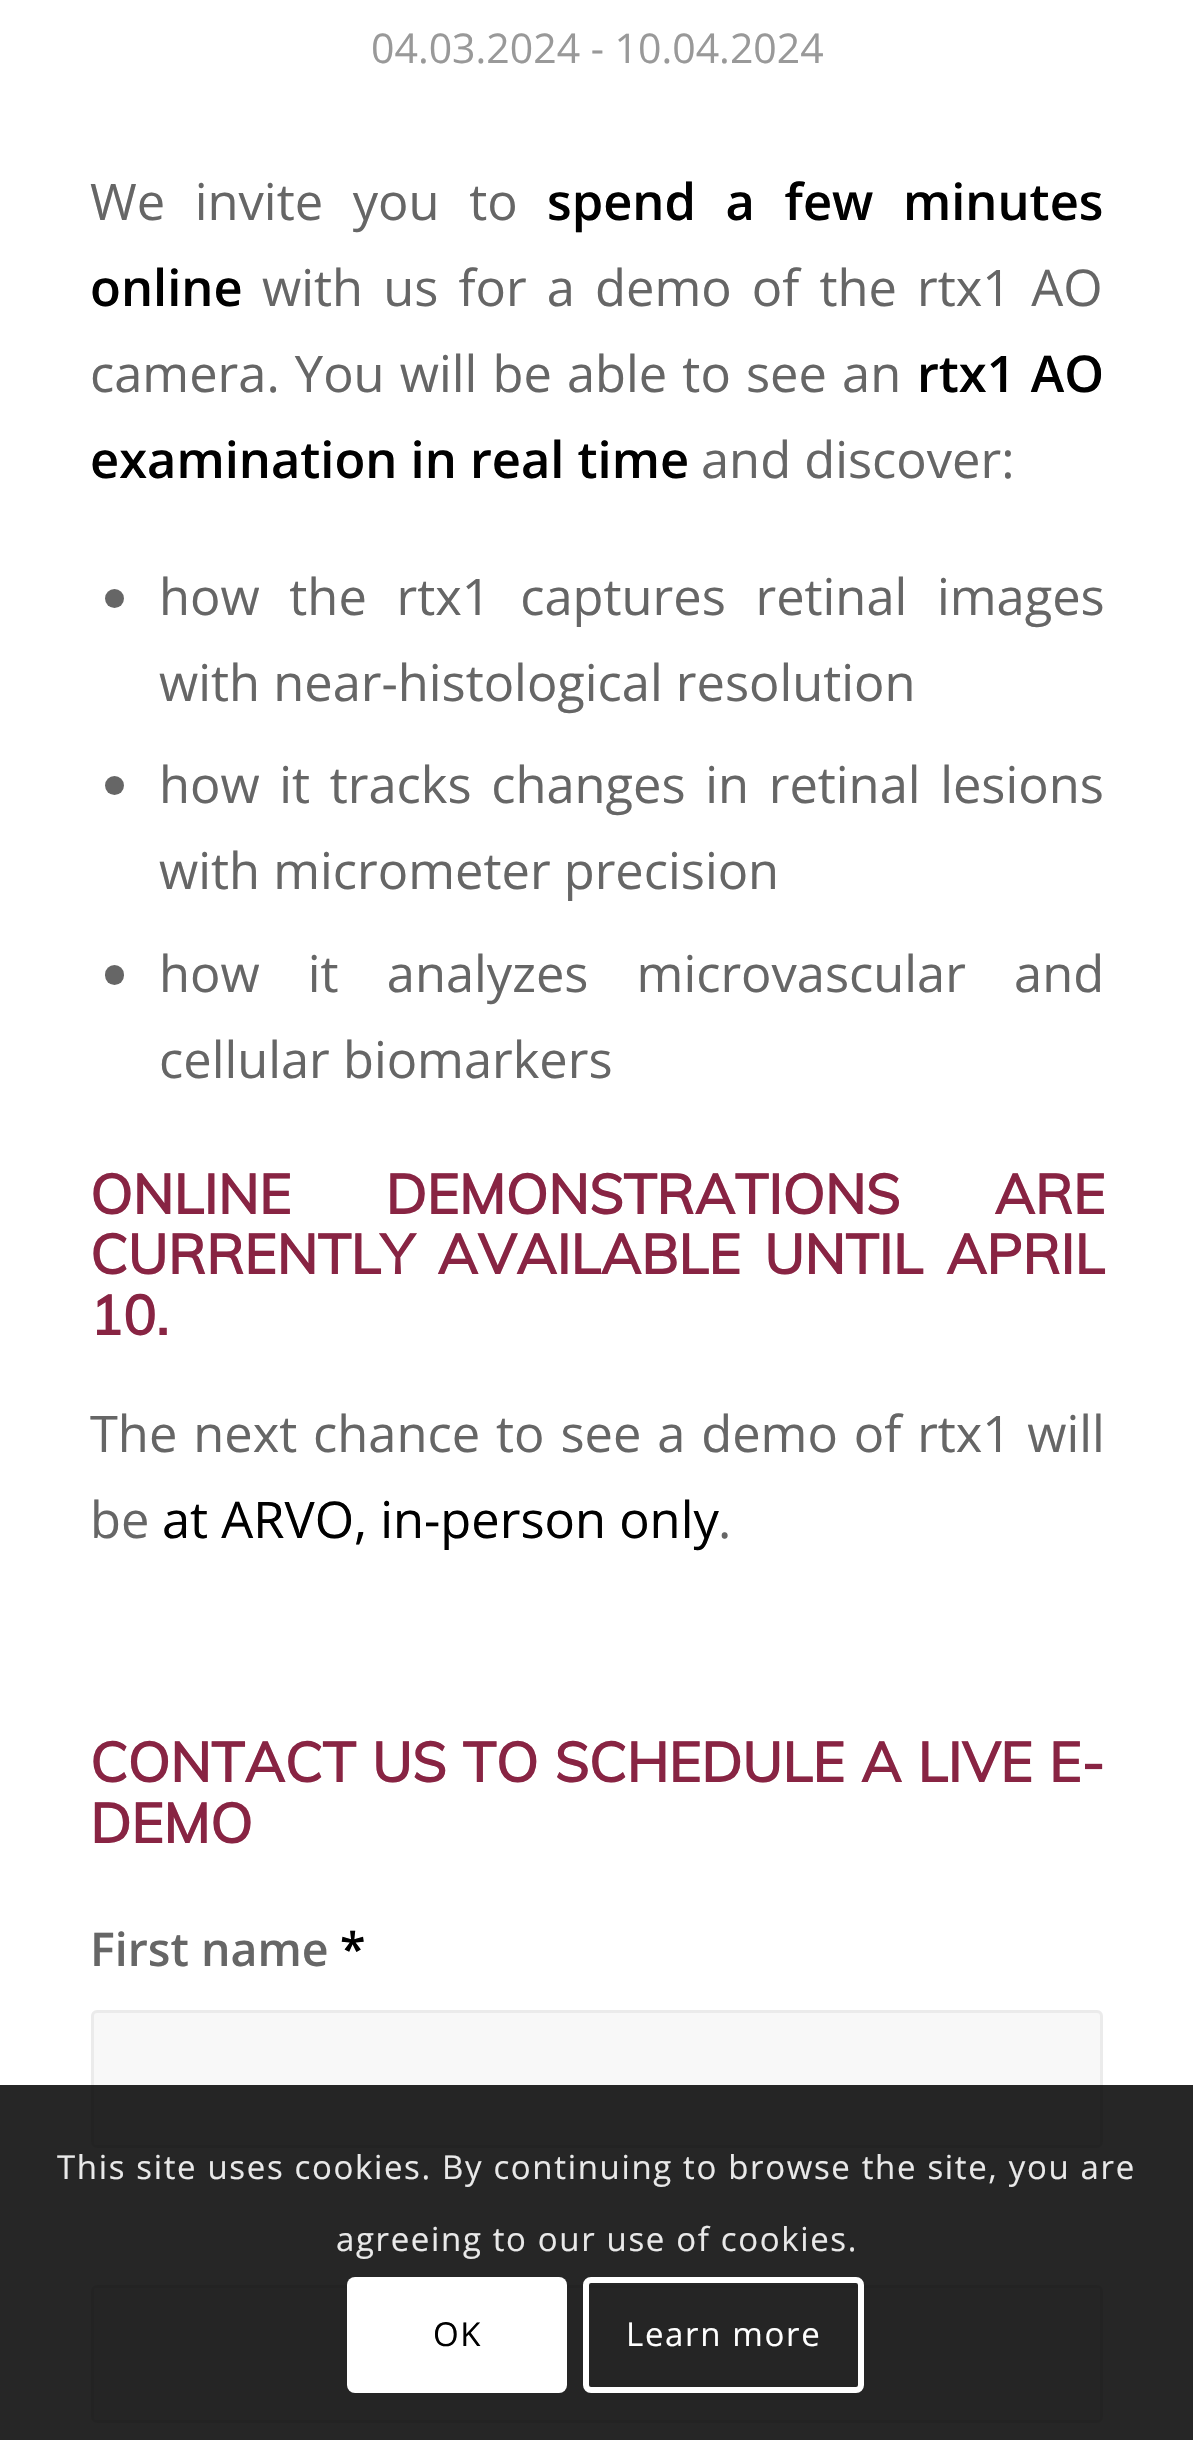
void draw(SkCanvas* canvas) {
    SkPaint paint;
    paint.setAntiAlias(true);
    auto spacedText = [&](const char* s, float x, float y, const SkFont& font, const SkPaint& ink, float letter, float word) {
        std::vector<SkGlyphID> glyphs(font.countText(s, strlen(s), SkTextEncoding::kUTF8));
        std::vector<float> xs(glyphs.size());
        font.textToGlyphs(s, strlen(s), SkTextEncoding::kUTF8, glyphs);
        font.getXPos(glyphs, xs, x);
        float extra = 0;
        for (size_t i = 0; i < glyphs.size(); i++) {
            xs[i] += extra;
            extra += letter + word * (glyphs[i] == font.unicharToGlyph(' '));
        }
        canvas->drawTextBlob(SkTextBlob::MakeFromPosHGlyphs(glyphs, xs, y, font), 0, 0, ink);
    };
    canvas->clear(0xFFFFFFFF);
    SkFont font1(fontMgr->matchFamilyStyle("Open Sans", SkFontStyle::Normal()), 41);
    font1.setSubpixel(true);
    paint.setColor(0xFF999999);
    canvas->drawString("04.03.2024 - 10.04.2024", 371, 63, font1, paint);
    SkFont font2(fontMgr->matchFamilyStyle("Open Sans", SkFontStyle::Normal()), 50.6f);
    font2.setSubpixel(true);
    paint.setColor(0xFF666666);
    spacedText("We invite you to", 90, 220, font2, paint, 0, 16.5f);
    SkFont font3(fontMgr->matchFamilyStyle("Open Sans", SkFontStyle(600, SkFontStyle::kNormal_Width, SkFontStyle::kUpright_Slant)), 50.6f);
    font3.setSubpixel(true);
    paint.setColor(0xFF000000);
    spacedText("spend a few minutes", 547, 220, font3, paint, 0, 16.5f);
    canvas->drawString("online", 90, 306, font3, paint);
    paint.setColor(0xFF666666);
    spacedText("with us for a demo of the rtx1 AO", 262, 306, font2, paint, 0, 7);
    spacedText("camera. You will be able to see an", 90, 392, font2, paint, 0, 2);
    paint.setColor(0xFF000000);
    spacedText("rtx1 AO", 917, 392, font3, paint, 0, 2);
    canvas->drawString("examination in real time", 90, 478, font3, paint);
    paint.setColor(0xFF666666);
    canvas->drawString("and discover:", 701, 478, font2, paint);
    canvas->drawCircle(114.5f, 598.5f, 9.5f, paint);
    spacedText("how the rtx1 captures retinal images", 159, 615, font2, paint, 0, 16.5f);
    canvas->drawString("with near-histological resolution", 159, 701, font2, paint);
    canvas->drawCircle(114.5f, 785.5f, 9.5f, paint);
    spacedText("how it tracks changes in retinal lesions", 159, 803, font2, paint, 0, 6.5f);
    canvas->drawString("with micrometer precision", 159, 889, font2, paint);
    canvas->drawRoundRect(SkRect::MakeXYWH(105, 965, 19, 20), 9.5f, 9.5f, paint);
    spacedText("how it analyzes microvascular and", 159, 992, font2, paint, 0, 35);
    canvas->drawString("cellular biomarkers", 159, 1078, font2, paint);
    SkFont font4(fontMgr->matchFamilyStyle("Muli", SkFontStyle::Bold()), 55);
    font4.setSubpixel(true);
    paint.setColor(0xFF882443);
    spacedText("ONLINE DEMONSTRATIONS ARE", 90, 1214, font4, paint, 0, 80);
    spacedText("CURRENTLY AVAILABLE UNTIL APRIL", 90, 1274, font4, paint, 0, 9);
    canvas->drawString("10.", 90, 1335, font4, paint);
    paint.setColor(0xFF666666);
    spacedText("The next chance to see a demo of rtx1 will", 90, 1452, font2, paint, 0, 2.75f);
    canvas->drawString("be", 90, 1538, font2, paint);
    paint.setColor(0xFF000000);
    canvas->drawString("at ARVO, in-person only", 162, 1538, font2, paint);
    paint.setColor(0xFF666666);
    canvas->drawString(".", 718, 1538, font2, paint);
    paint.setColor(0xFF882443);
    spacedText("CONTACT US TO SCHEDULE A LIVE E-", 90, 1782, font4, paint, 0, 2);
    canvas->drawString("DEMO", 90, 1843, font4, paint);
    SkFont font5(fontMgr->matchFamilyStyle("Open Sans", SkFontStyle(600, SkFontStyle::kNormal_Width, SkFontStyle::kUpright_Slant)), 46.5f);
    font5.setSubpixel(true);
    paint.setColor(0xFF666666);
    canvas->drawString("First name", 90, 1966, font5, paint);
    paint.setColor(0xFF000000);
    canvas->drawString("*", 340, 1966, font5, paint);
    paint.setColor(0xFFF8F8F8);
    canvas->drawRoundRect(SkRect::MakeXYWH(92.5f, 2011.5f, 1009, 135), 4.5f, 4.5f, paint);
    paint.setStyle(SkPaint::kStroke_Style);
    paint.setStrokeWidth(3);
    paint.setColor(0xFFEBEBEB);
    canvas->drawRoundRect(SkRect::MakeXYWH(92.5f, 2011.5f, 1009, 135), 4.5f, 4.5f, paint);
    paint.setStyle(SkPaint::kFill_Style);
    paint.setColor(0xFFF8F8F8);
    canvas->drawRoundRect(SkRect::MakeXYWH(92.5f, 2286.5f, 1009, 135), 4.5f, 4.5f, paint);
    paint.setStyle(SkPaint::kStroke_Style);
    paint.setColor(0xFFEBEBEB);
    canvas->drawRoundRect(SkRect::MakeXYWH(92.5f, 2286.5f, 1009, 135), 4.5f, 4.5f, paint);
    paint.setStyle(SkPaint::kFill_Style);
    paint.setColor(0xD9000000);
    canvas->drawRect(SkRect::MakeXYWH(0, 2085, 1193, 355), paint);
    SkFont font6(fontMgr->matchFamilyStyle("Open Sans", SkFontStyle::Normal()), 33);
    font6.setSubpixel(true);
    paint.setColor(0xFFE9E9E9);
    spacedText("This site uses cookies. By continuing to browse the site, you are", 57, 2179, font6, paint, 1.65f, 0);
    spacedText("agreeing to our use of cookies.", 336, 2251, font6, paint, 1.65f, 0);
    paint.setColor(0xFFFFFFFF);
    canvas->drawRoundRect(SkRect::MakeXYWH(347, 2277, 220, 116), 8, 8, paint);
    paint.setColor(0xFF000000);
    spacedText("OK", 433, 2346, font6, paint, 1.65f, 0);
    paint.setStyle(SkPaint::kStroke_Style);
    paint.setStrokeWidth(6);
    paint.setColor(0xFFFFFFFF);
    canvas->drawRoundRect(SkRect::MakeXYWH(586, 2280, 275, 110), 5, 5, paint);
    paint.setStyle(SkPaint::kFill_Style);
    spacedText("Learn more", 626, 2346, font6, paint, 1.65f, 0);
}
